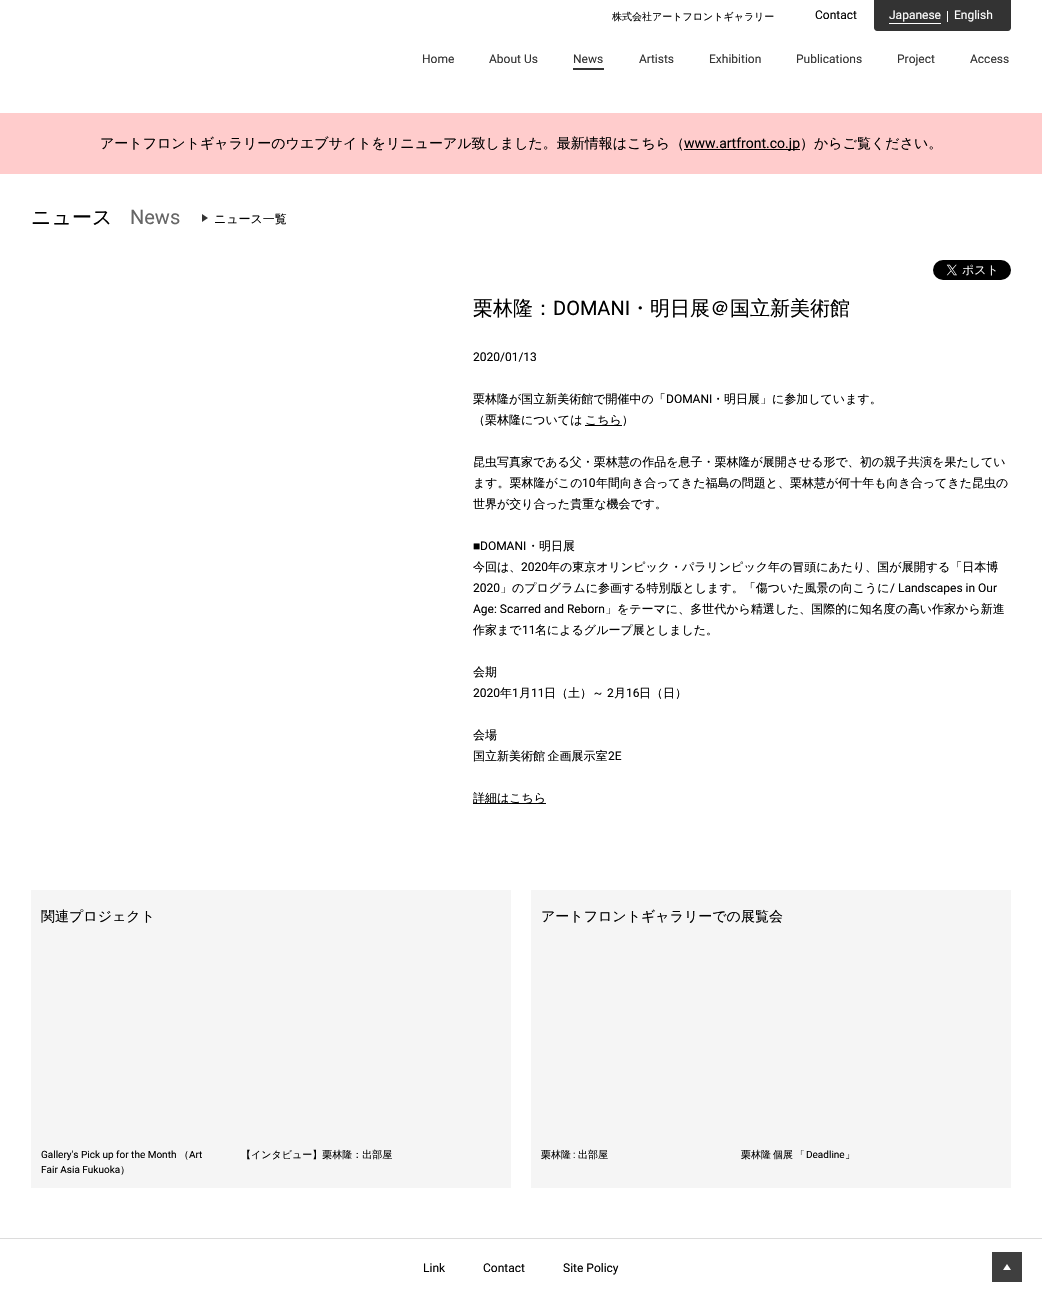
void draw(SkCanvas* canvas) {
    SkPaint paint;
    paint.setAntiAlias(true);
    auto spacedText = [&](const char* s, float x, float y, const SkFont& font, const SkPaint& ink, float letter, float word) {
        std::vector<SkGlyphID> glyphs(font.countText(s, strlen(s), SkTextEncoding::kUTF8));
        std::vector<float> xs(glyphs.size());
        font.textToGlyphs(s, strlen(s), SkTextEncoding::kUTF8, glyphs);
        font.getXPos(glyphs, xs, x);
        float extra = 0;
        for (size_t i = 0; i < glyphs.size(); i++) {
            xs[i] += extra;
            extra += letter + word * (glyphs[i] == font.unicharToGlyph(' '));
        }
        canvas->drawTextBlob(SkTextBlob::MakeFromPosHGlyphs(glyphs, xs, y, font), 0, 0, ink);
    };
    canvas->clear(0xFFFFFFFF);
    SkFont font1(fontMgr->matchFamilyStyle("WenQuanYi Zen Hei", SkFontStyle(500, SkFontStyle::kNormal_Width, SkFontStyle::kUpright_Slant)), 10);
    font1.setSubpixel(true);
    paint.setColor(0xFF000000);
    canvas->drawString("株式会社アートフロントギャラリー", 612, 20, font1, paint);
    SkFont font2(fontMgr->matchFamilyStyle("Roboto", SkFontStyle::Normal()), 12);
    font2.setSubpixel(true);
    canvas->drawString("Contact", 815, 19, font2, paint);
    paint.setColor(0xFF333333);
    canvas->drawPath(SkPathBuilder().moveTo(874, 0).lineTo(1011, 0).lineTo(1011, 28).cubicTo(1011, 29.5f, 1009.5f, 31, 1008, 31).lineTo(877, 31).cubicTo(875.5f, 31, 874, 29.5f, 874, 28).close().detach(), paint);
    paint.setColor(0xFFFFFFFF);
    canvas->drawString("Japanese", 889, 19, font2, paint);
    canvas->drawRect(SkRect::MakeXYWH(889, 23, 52, 1), paint);
    canvas->drawRect(SkRect::MakeXYWH(947, 11, 1, 11), paint);
    canvas->drawString("English", 954, 19, font2, paint);
    paint.setColor(0xFF333333);
    canvas->drawString("Home", 422, 63, font2, paint);
    canvas->drawString("About Us", 489, 63, font2, paint);
    canvas->drawString("News", 573, 63, font2, paint);
    canvas->drawRect(SkRect::MakeXYWH(573, 68, 31, 2), paint);
    canvas->drawString("Artists", 639, 63, font2, paint);
    canvas->drawString("Exhibition", 709, 63, font2, paint);
    canvas->drawString("Publications", 796, 63, font2, paint);
    canvas->drawString("Project", 897, 63, font2, paint);
    canvas->drawString("Access", 970, 63, font2, paint);
    paint.setColor(0xFFFFCCCC);
    canvas->drawRect(SkRect::MakeXYWH(0, 113, 1042, 61), paint);
    SkFont font3(fontMgr->matchFamilyStyle("WenQuanYi Zen Hei", SkFontStyle(500, SkFontStyle::kNormal_Width, SkFontStyle::kUpright_Slant)), 14);
    font3.setSubpixel(true);
    paint.setColor(0xFF000000);
    canvas->drawString("アートフロントギャラリーのウエブサイトをリニューアル致しました。最新情報はこちら（", 100, 148, font3, paint);
    canvas->drawRect(SkRect::MakeXYWH(684, 149, 116, 1), paint);
    SkFont font4(fontMgr->matchFamilyStyle("Roboto", SkFontStyle::Normal()), 14);
    font4.setSubpixel(true);
    canvas->drawString("www.artfront.co.jp", 684, 148, font4, paint);
    canvas->drawString("）からご覧ください。", 800, 148, font3, paint);
    SkFont font5(fontMgr->matchFamilyStyle("WenQuanYi Zen Hei", SkFontStyle(500, SkFontStyle::kNormal_Width, SkFontStyle::kUpright_Slant)), 20);
    font5.setSubpixel(true);
    canvas->drawString("ニュース", 31, 224, font5, paint);
    SkFont font6(fontMgr->matchFamilyStyle("Roboto", SkFontStyle::Normal()), 20);
    font6.setSubpixel(true);
    paint.setColor(0xFF666666);
    canvas->drawString("News", 130, 224, font6, paint);
    paint.setColor(0xFF333333);
    canvas->drawPath(SkPathBuilder().moveTo(202, 222).lineTo(202, 214).lineTo(208, 218).close().detach(), paint);
    SkFont font7(fontMgr->matchFamilyStyle("WenQuanYi Zen Hei", SkFontStyle(500, SkFontStyle::kNormal_Width, SkFontStyle::kUpright_Slant)), 12);
    font7.setSubpixel(true);
    paint.setColor(0xFF000000);
    canvas->drawString("ニュース一覧", 214, 223, font7, paint);
    canvas->drawImageRect(SkImages::DeferredFromEncodedData(SkData::MakeFromFileName("img1.png")), SkRect::MakeXYWH(933, 260, 78, 20), SkSamplingOptions());
    canvas->drawString("栗林隆：", 473, 315, font5, paint);
    canvas->drawString("DOMANI", 553, 315, font6, paint);
    canvas->drawString("・明日展＠国立新美術館", 630, 315, font5, paint);
    canvas->drawString("2020/01/13", 473, 361, font2, paint);
    canvas->drawString("栗林隆が国立新美術館で開催中の「", 473, 403, font7, paint);
    canvas->drawString("DOMANI", 666, 403, font2, paint);
    canvas->drawString("・明日展」に参加しています。", 712, 403, font7, paint);
    canvas->drawString("（栗林隆については", 473, 424, font7, paint);
    canvas->drawRect(SkRect::MakeXYWH(585, 425, 37, 1), paint);
    canvas->drawString("こちら）", 585, 424, font7, paint);
    canvas->drawString("昆虫写真家である父・栗林慧の作品を息子・栗林隆が展開させる形で、初の親子共演を果たしてい", 473, 466, font7, paint);
    canvas->drawString("ます。栗林隆がこの", 473, 487, font7, paint);
    canvas->drawString("10", 582, 487, font2, paint);
    canvas->drawString("年間向き合ってきた福島の問題と、栗林慧が何十年も向き合ってきた昆虫の", 596, 487, font7, paint);
    canvas->drawString("世界が交り合った貴重な機会です。", 473, 508, font7, paint);
    SkFont font8(fontMgr->matchFamilyStyle("Liberation Sans", SkFontStyle::Normal()), 12);
    font8.setSubpixel(true);
    canvas->drawString("■", 473, 550, font8, paint);
    canvas->drawString("DOMANI", 480, 550, font2, paint);
    canvas->drawString("・明日展", 527, 550, font7, paint);
    canvas->drawString("今回は、", 473, 571, font7, paint);
    canvas->drawString("2020", 521, 571, font2, paint);
    canvas->drawString("年の東京オリンピック・パラリンピック年の冒頭にあたり、国が展開する「日本博", 548, 571, font7, paint);
    canvas->drawString("2020", 473, 592, font2, paint);
    canvas->drawString("」のプログラムに参画する特別版とします。「傷ついた風景の向こうに", 500, 592, font7, paint);
    canvas->drawString("/ Landscapes in Our", 890, 592, font2, paint);
    canvas->drawString("Age: Scarred and Reborn", 473, 613, font2, paint);
    canvas->drawString("」をテーマに、多世代から精選した、国際的に知名度の高い作家から新進", 605, 613, font7, paint);
    canvas->drawString("作家まで", 473, 634, font7, paint);
    canvas->drawString("11", 522, 634, font2, paint);
    canvas->drawString("名によるグループ展としました。", 535, 634, font7, paint);
    canvas->drawString("会期", 473, 676, font7, paint);
    canvas->drawString("2020", 473, 697, font2, paint);
    canvas->drawString("年", 500, 697, font7, paint);
    canvas->drawString("1", 512, 697, font2, paint);
    canvas->drawString("月", 519, 697, font7, paint);
    canvas->drawString("11", 531, 697, font2, paint);
    canvas->drawString("日（土）～", 544, 697, font7, paint);
    canvas->drawString("2", 607, 697, font2, paint);
    canvas->drawString("月", 614, 697, font7, paint);
    canvas->drawString("16", 626, 697, font2, paint);
    canvas->drawString("日（日）", 639, 697, font7, paint);
    canvas->drawString("会場", 473, 739, font7, paint);
    spacedText("国立新美術館 企画展示室", 473, 760, font7, paint, 0, -1);
    canvas->drawString("2E", 608, 760, font2, paint);
    canvas->drawRect(SkRect::MakeXYWH(473, 803, 73, 1), paint);
    canvas->drawString("詳細はこちら", 473, 802, font7, paint);
    paint.setColor(0xFFF5F5F5);
    canvas->drawRect(SkRect::MakeXYWH(31, 890, 480, 298), paint);
    paint.setColor(0xFF000000);
    canvas->drawString("関連プロジェクト", 41, 921, font3, paint);
    SkFont font9(fontMgr->matchFamilyStyle("Roboto", SkFontStyle::Normal()), 10);
    font9.setSubpixel(true);
    canvas->drawString("Gallery's Pick up for the Month", 41, 1158, font9, paint);
    canvas->drawString("（", 179, 1158, font1, paint);
    canvas->drawString("Art", 189, 1158, font9, paint);
    canvas->drawString("Fair Asia Fukuoka", 41, 1173, font9, paint);
    canvas->drawString("）", 120, 1173, font1, paint);
    canvas->drawString("【インタビュー】栗林隆：出部屋", 241, 1158, font1, paint);
    paint.setColor(0xFFF5F5F5);
    canvas->drawRect(SkRect::MakeXYWH(531, 890, 480, 298), paint);
    paint.setColor(0xFF000000);
    canvas->drawString("アートフロントギャラリーでの展覧会", 541, 921, font3, paint);
    canvas->drawString("栗林隆", 541, 1158, font1, paint);
    canvas->drawString(":", 573, 1158, font9, paint);
    canvas->drawString("出部屋", 578, 1158, font1, paint);
    spacedText("栗林隆 個展 「", 741, 1158, font1, paint, 0, -1);
    canvas->drawString("Deadline", 806, 1158, font9, paint);
    canvas->drawString("」", 845, 1158, font1, paint);
    paint.setColor(0xFFDCDCDC);
    canvas->drawRect(SkRect::MakeXYWH(0, 1238, 1042, 1), paint);
    paint.setColor(0xFF000000);
    canvas->drawString("Link", 423, 1272, font2, paint);
    canvas->drawString("Contact", 483, 1272, font2, paint);
    canvas->drawString("Site Policy", 563, 1272, font2, paint);
    paint.setColor(0xFF3F3F3F);
    canvas->drawRect(SkRect::MakeXYWH(992, 1252, 30, 30), paint);
    paint.setColor(0xFFFFFFFF);
    canvas->drawPath(SkPathBuilder().moveTo(1011, 1270).lineTo(1003, 1270).lineTo(1007, 1264).close().detach(), paint);
}
